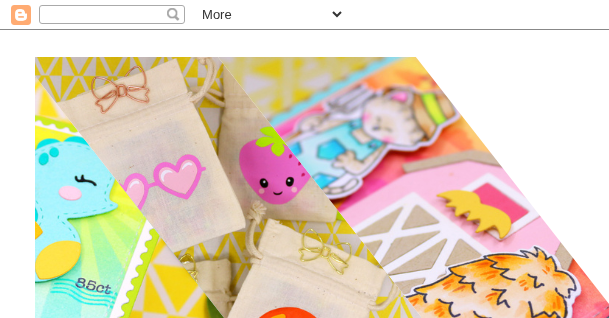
void draw(SkCanvas* canvas) {
    SkPaint paint;
    paint.setAntiAlias(true);
    canvas->clear(0xFFFFFFFF);
    canvas->drawImageRect(SkImages::DeferredFromEncodedData(SkData::MakeFromFileName("img1.png")), SkRect::MakeXYWH(0, 5, 609, 25), SkSamplingOptions());
    canvas->drawImageRect(SkImages::DeferredFromEncodedData(SkData::MakeFromFileName("img2.png")), SkRect::MakeXYWH(35, 57, 574, 261), SkSamplingOptions());
}
